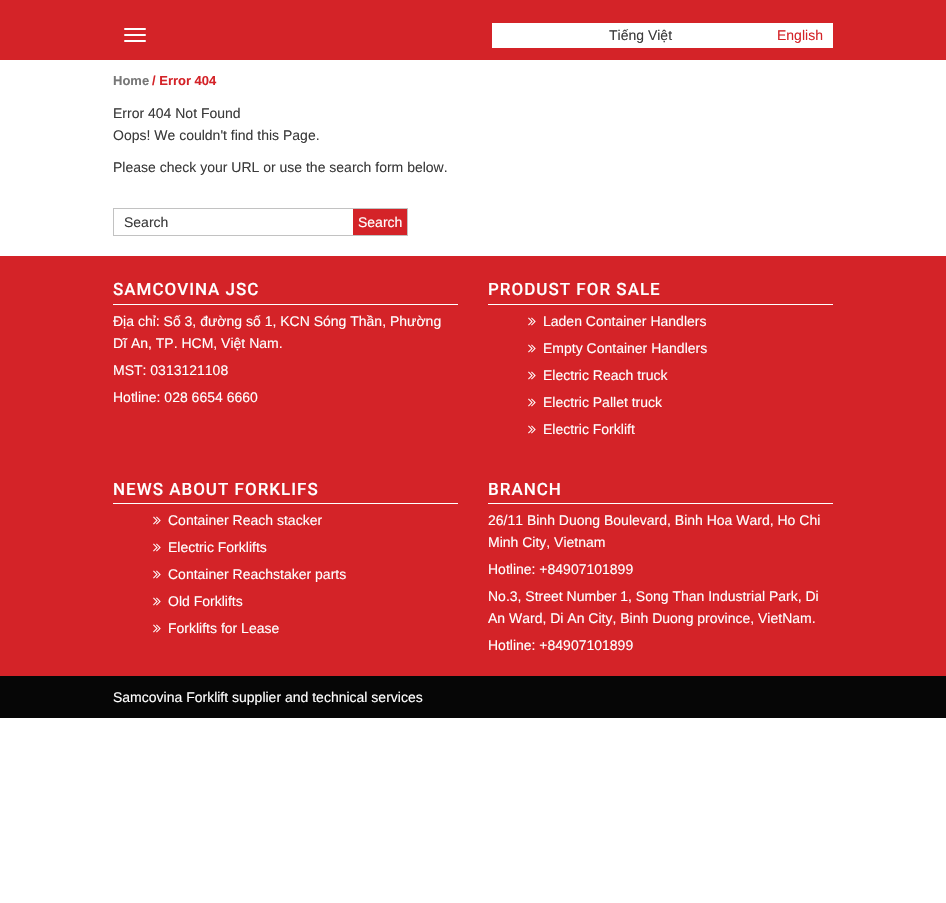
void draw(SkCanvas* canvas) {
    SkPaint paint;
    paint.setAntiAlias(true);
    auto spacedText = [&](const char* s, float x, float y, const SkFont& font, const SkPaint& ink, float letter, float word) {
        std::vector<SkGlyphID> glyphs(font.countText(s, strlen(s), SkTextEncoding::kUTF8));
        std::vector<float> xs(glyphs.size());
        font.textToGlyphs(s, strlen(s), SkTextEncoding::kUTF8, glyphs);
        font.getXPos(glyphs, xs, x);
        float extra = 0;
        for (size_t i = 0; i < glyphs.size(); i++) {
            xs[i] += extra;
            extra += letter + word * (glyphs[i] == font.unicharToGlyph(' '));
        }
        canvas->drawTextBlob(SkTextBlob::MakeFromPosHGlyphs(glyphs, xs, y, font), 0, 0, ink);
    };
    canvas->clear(0xFFFFFFFF);
    paint.setColor(0xFFD42328);
    canvas->drawRect(SkRect::MakeXYWH(0, 0, 946, 60), paint);
    paint.setColor(0xFFFFFFFF);
    canvas->drawRoundRect(SkRect::MakeXYWH(124, 28, 22, 2), 1, 1, paint);
    canvas->drawRoundRect(SkRect::MakeXYWH(124, 34, 22, 2), 1, 1, paint);
    canvas->drawRoundRect(SkRect::MakeXYWH(124, 40, 22, 2), 1, 1, paint);
    canvas->drawRect(SkRect::MakeXYWH(492, 23, 341, 25), paint);
    SkFont font1(fontMgr->matchFamilyStyle("Liberation Sans", SkFontStyle::Normal()), 14);
    font1.setSubpixel(true);
    paint.setColor(0xFF3B3B3B);
    canvas->drawString("Tiếng Việt", 609, 40, font1, paint);
    paint.setColor(0xFFD42328);
    canvas->drawString("English", 777, 40, font1, paint);
    SkFont font2(fontMgr->matchFamilyStyle("Liberation Sans", SkFontStyle::Bold()), 13);
    font2.setSubpixel(true);
    paint.setColor(0xFF777777);
    canvas->drawString("Home", 113, 85, font2, paint);
    paint.setColor(0xFFD42328);
    canvas->drawString("/ Error 404", 152, 85, font2, paint);
    paint.setColor(0xFF3B3B3B);
    canvas->drawString("Error 404 Not Found", 113, 118, font1, paint);
    canvas->drawString("Oops! We couldn't find this Page.", 113, 140, font1, paint);
    canvas->drawString("Please check your URL or use the search form below.", 113, 172, font1, paint);
    paint.setColor(0xFFC2C2C2);
    canvas->drawRect(SkRect::MakeXYWH(113, 208, 295, 1), paint);
    canvas->drawRect(SkRect::MakeXYWH(113, 235, 240, 1), paint);
    canvas->drawRect(SkRect::MakeXYWH(113, 208, 1, 28), paint);
    paint.setColor(0xFF3B3B3B);
    canvas->drawString("Search", 124, 227, font1, paint);
    paint.setColor(0xFFD42328);
    canvas->drawRect(SkRect::MakeXYWH(353, 209, 54, 26), paint);
    paint.setColor(0xFFC2C2C2);
    canvas->drawRect(SkRect::MakeXYWH(407, 208, 1, 28), paint);
    canvas->drawRect(SkRect::MakeXYWH(353, 235, 55, 1), paint);
    paint.setColor(0xFFFFFFFF);
    canvas->drawString("Search", 358, 227, font1, paint);
    paint.setColor(0xFFD42328);
    canvas->drawRect(SkRect::MakeXYWH(0, 256, 946, 420), paint);
    paint.setColor(0xFFFFFFFF);
    canvas->drawRect(SkRect::MakeXYWH(113, 304, 345, 1), paint);
    SkFont font3(fontMgr->matchFamilyStyle("Roboto", SkFontStyle(500, SkFontStyle::kNormal_Width, SkFontStyle::kUpright_Slant)), 17);
    font3.setSubpixel(true);
    spacedText("SAMCOVINA JSC", 113, 295, font3, paint, 1, 0);
    canvas->drawString("Địa chỉ: Số 3, đường số 1, KCN Sóng Thần, Phường", 113, 326, font1, paint);
    canvas->drawString("Dĩ An, TP. HCM, Việt Nam.", 113, 348, font1, paint);
    canvas->drawString("MST: 0313121108", 113, 375, font1, paint);
    canvas->drawString("Hotline: 028 6654 6660", 113, 402, font1, paint);
    canvas->drawRect(SkRect::MakeXYWH(488, 304, 345, 1), paint);
    spacedText("PRODUST FOR SALE", 488, 295, font3, paint, 1, 0);
    canvas->drawImageRect(SkImages::DeferredFromEncodedData(SkData::MakeFromFileName("img1.png")), SkRect::MakeXYWH(528, 317, 8, 9), SkSamplingOptions());
    canvas->drawString("Laden Container Handlers", 543, 326, font1, paint);
    canvas->drawImageRect(SkImages::DeferredFromEncodedData(SkData::MakeFromFileName("img1.png")), SkRect::MakeXYWH(528, 344, 8, 9), SkSamplingOptions());
    canvas->drawString("Empty Container Handlers", 543, 353, font1, paint);
    canvas->drawImageRect(SkImages::DeferredFromEncodedData(SkData::MakeFromFileName("img1.png")), SkRect::MakeXYWH(528, 371, 8, 9), SkSamplingOptions());
    canvas->drawString("Electric Reach truck", 543, 380, font1, paint);
    canvas->drawImageRect(SkImages::DeferredFromEncodedData(SkData::MakeFromFileName("img1.png")), SkRect::MakeXYWH(528, 398, 8, 9), SkSamplingOptions());
    canvas->drawString("Electric Pallet truck", 543, 407, font1, paint);
    canvas->drawImageRect(SkImages::DeferredFromEncodedData(SkData::MakeFromFileName("img1.png")), SkRect::MakeXYWH(528, 425, 8, 9), SkSamplingOptions());
    canvas->drawString("Electric Forklift", 543, 434, font1, paint);
    canvas->drawRect(SkRect::MakeXYWH(113, 503, 345, 1), paint);
    spacedText("NEWS ABOUT FORKLIFS", 113, 495, font3, paint, 1, 0);
    canvas->drawImageRect(SkImages::DeferredFromEncodedData(SkData::MakeFromFileName("img1.png")), SkRect::MakeXYWH(153, 516, 8, 9), SkSamplingOptions());
    canvas->drawString("Container Reach stacker", 168, 525, font1, paint);
    canvas->drawImageRect(SkImages::DeferredFromEncodedData(SkData::MakeFromFileName("img1.png")), SkRect::MakeXYWH(153, 543, 8, 9), SkSamplingOptions());
    canvas->drawString("Electric Forklifts", 168, 552, font1, paint);
    canvas->drawImageRect(SkImages::DeferredFromEncodedData(SkData::MakeFromFileName("img1.png")), SkRect::MakeXYWH(153, 570, 8, 9), SkSamplingOptions());
    canvas->drawString("Container Reachstaker parts", 168, 579, font1, paint);
    canvas->drawImageRect(SkImages::DeferredFromEncodedData(SkData::MakeFromFileName("img1.png")), SkRect::MakeXYWH(153, 597, 8, 9), SkSamplingOptions());
    canvas->drawString("Old Forklifts", 168, 606, font1, paint);
    canvas->drawImageRect(SkImages::DeferredFromEncodedData(SkData::MakeFromFileName("img1.png")), SkRect::MakeXYWH(153, 624, 8, 9), SkSamplingOptions());
    canvas->drawString("Forklifts for Lease", 168, 633, font1, paint);
    canvas->drawRect(SkRect::MakeXYWH(488, 503, 345, 1), paint);
    spacedText("BRANCH", 488, 495, font3, paint, 1, 0);
    canvas->drawString("26/11 Binh Duong Boulevard, Binh Hoa Ward, Ho Chi", 488, 525, font1, paint);
    canvas->drawString("Minh City, Vietnam", 488, 547, font1, paint);
    canvas->drawString("Hotline: +84907101899", 488, 574, font1, paint);
    canvas->drawString("No.3, Street Number 1, Song Than Industrial Park, Di", 488, 601, font1, paint);
    canvas->drawString("An Ward, Di An City, Binh Duong province, VietNam.", 488, 623, font1, paint);
    canvas->drawString("Hotline: +84907101899", 488, 650, font1, paint);
    paint.setColor(0xFF060606);
    canvas->drawRect(SkRect::MakeXYWH(0, 676, 946, 42), paint);
    paint.setColor(0xFFFFFFFF);
    canvas->drawString("Samcovina Forklift supplier and technical services", 113, 702, font1, paint);
}
